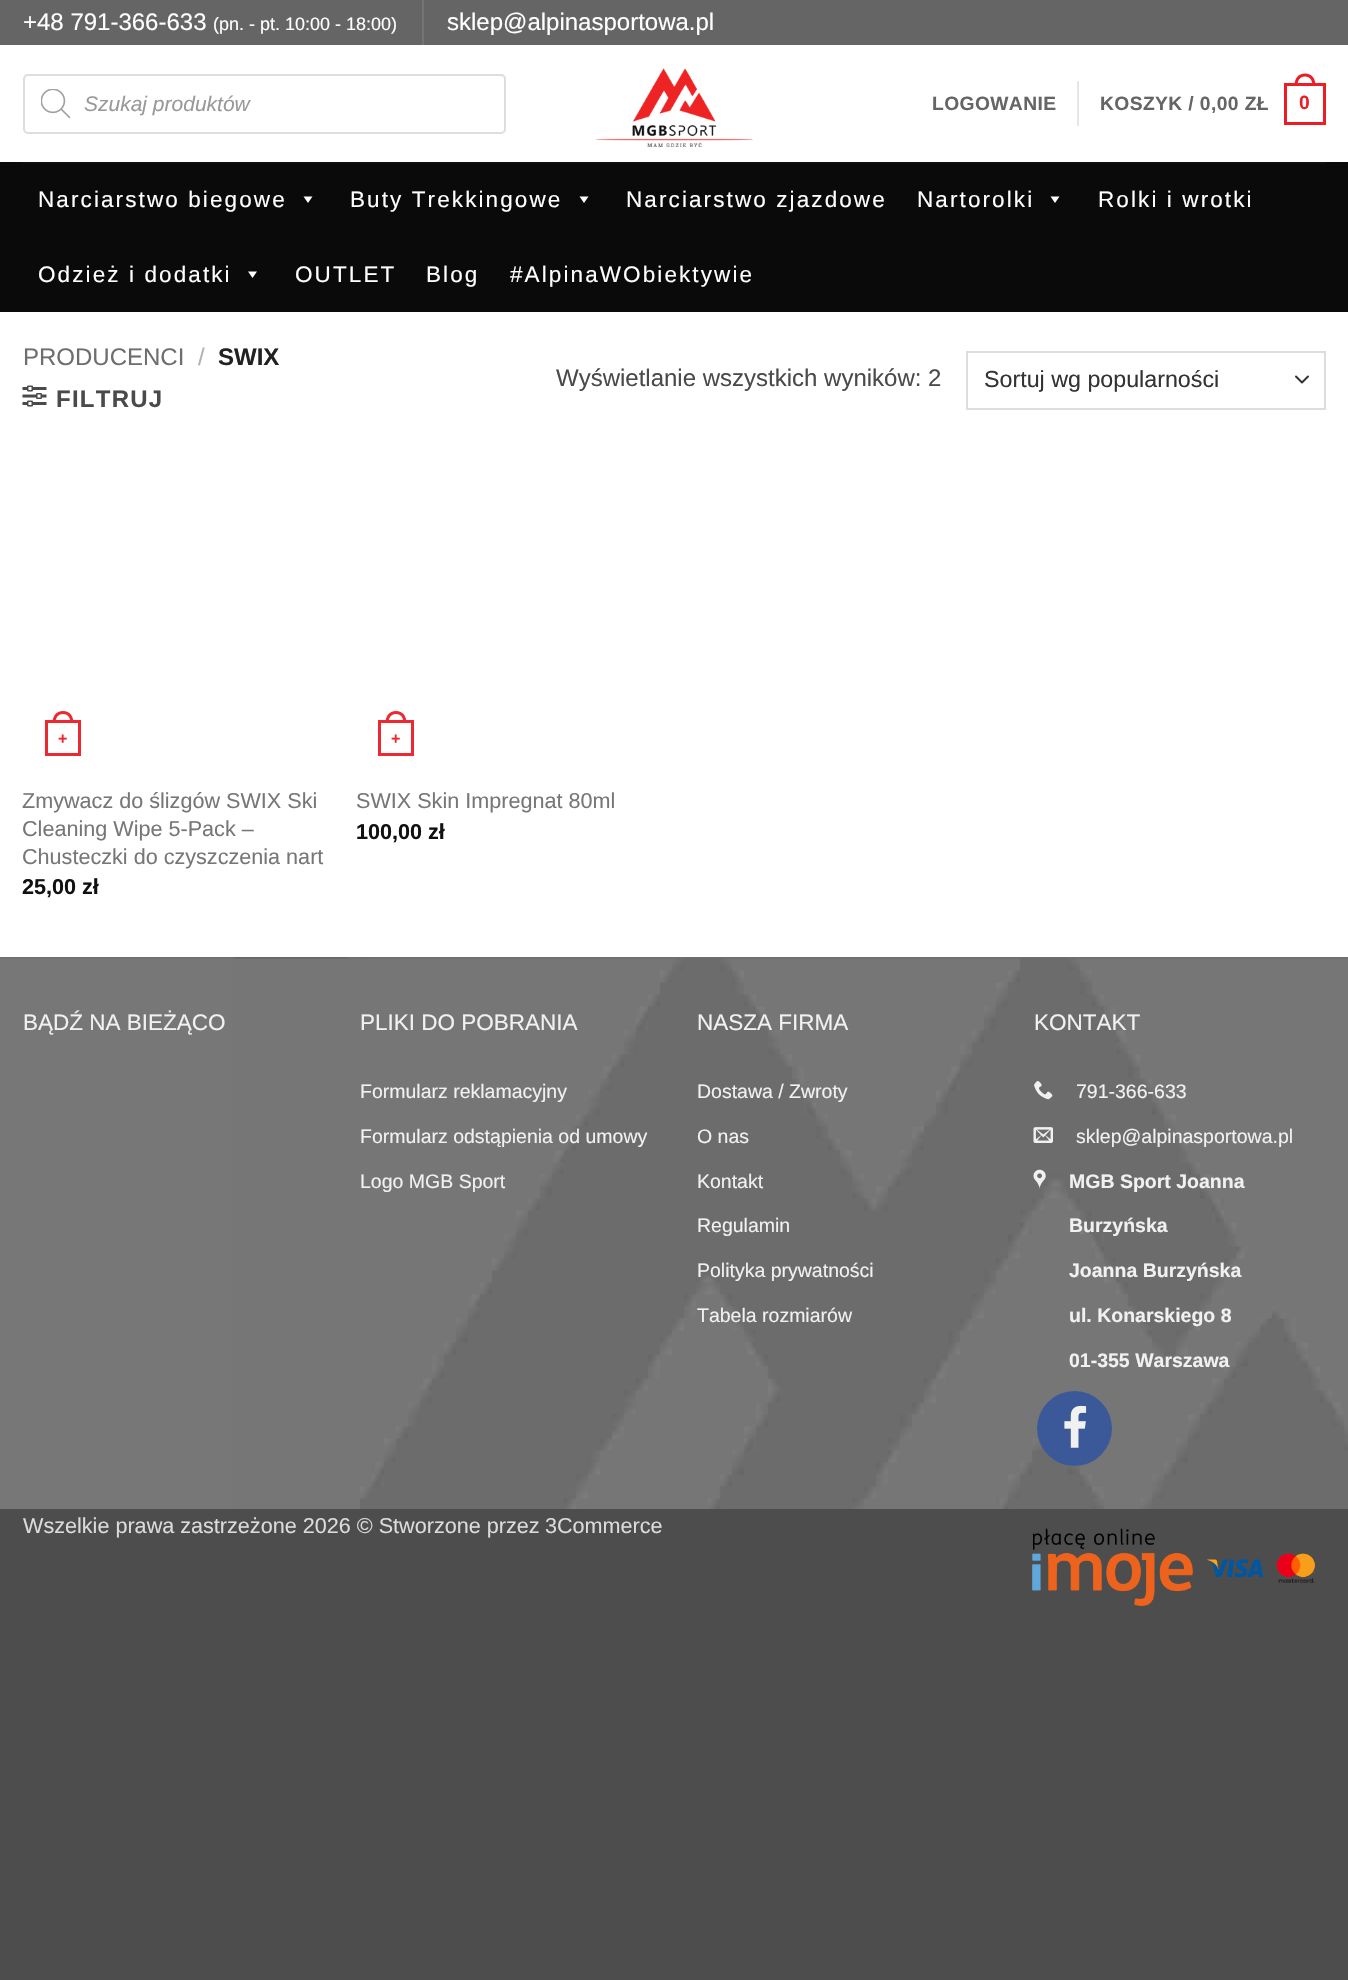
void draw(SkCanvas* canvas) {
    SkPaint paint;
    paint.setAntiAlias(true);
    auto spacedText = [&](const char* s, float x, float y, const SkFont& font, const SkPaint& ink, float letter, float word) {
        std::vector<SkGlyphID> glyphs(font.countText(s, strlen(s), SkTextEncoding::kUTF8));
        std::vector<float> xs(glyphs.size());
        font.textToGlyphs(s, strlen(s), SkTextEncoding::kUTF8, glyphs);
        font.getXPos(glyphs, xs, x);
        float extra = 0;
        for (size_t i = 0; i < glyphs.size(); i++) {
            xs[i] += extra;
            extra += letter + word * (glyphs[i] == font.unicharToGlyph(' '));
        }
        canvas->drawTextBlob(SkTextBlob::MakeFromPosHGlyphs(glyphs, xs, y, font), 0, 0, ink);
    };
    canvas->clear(0xFF4D4D4D);
    paint.setColor(0xFFFFFFFF);
    canvas->drawRect(SkRect::MakeXYWH(0, 45, 1348, 912), paint);
    paint.setColor(0xFF656565);
    canvas->drawRect(SkRect::MakeXYWH(0, 0, 1348, 45), paint);
    SkFont font1(fontMgr->matchFamilyStyle("Liberation Sans", SkFontStyle::Normal()), 24);
    font1.setSubpixel(true);
    paint.setColor(0xFFFFFFFF);
    canvas->drawString("+48 791-366-633", 23, 30, font1, paint);
    SkFont font2(fontMgr->matchFamilyStyle("Liberation Sans", SkFontStyle::Normal()), 18);
    font2.setSubpixel(true);
    canvas->drawString("(pn. - pt. 10:00 - 18:00)", 213, 30, font2, paint);
    paint.setColor(0xFF747474);
    canvas->drawRect(SkRect::MakeXYWH(422, 0, 2, 45), paint);
    paint.setColor(0xFFFFFFFF);
    canvas->drawString("sklep@alpinasportowa.pl", 447, 30, font1, paint);
    paint.setStyle(SkPaint::kStroke_Style);
    paint.setStrokeWidth(2);
    paint.setColor(0xFFDDDDDD);
    canvas->drawRoundRect(SkRect::MakeXYWH(24, 75, 481, 58), 4, 4, paint);
    canvas->drawImageRect(SkImages::DeferredFromEncodedData(SkData::MakeFromFileName("img1.png")), SkRect::MakeXYWH(41, 89, 30, 30), SkSamplingOptions());
    SkFont font3(fontMgr->matchFamilyStyle("Liberation Sans", SkFontStyle::Italic()), 21);
    font3.setSubpixel(true);
    paint.setStyle(SkPaint::kFill_Style);
    paint.setColor(0xFF999999);
    canvas->drawString("Szukaj produktów", 84, 111, font3, paint);
    canvas->drawImageRect(SkImages::DeferredFromEncodedData(SkData::MakeFromFileName("img2.png")), SkRect::MakeXYWH(595, 68, 158, 79), SkSamplingOptions());
    SkFont font4(fontMgr->matchFamilyStyle("Liberation Sans", SkFontStyle::Bold()), 19.25f);
    font4.setSubpixel(true);
    paint.setColor(0xFF656565);
    spacedText("LOGOWANIE", 932, 110, font4, paint, 0.4f, 0);
    paint.setColor(0xFFE6E6E6);
    canvas->drawRect(SkRect::MakeXYWH(1077, 81, 2, 45), paint);
    paint.setColor(0xFF656565);
    spacedText("KOSZYK / 0,00 ZŁ", 1100, 110, font4, paint, 0.4f, 0);
    paint.setStyle(SkPaint::kStroke_Style);
    paint.setStrokeWidth(3);
    paint.setColor(0xFFEC1D25);
    canvas->drawRect(SkRect::MakeXYWH(1285.5f, 84.5f, 39, 39), paint);
    paint.setStyle(SkPaint::kFill_Style);
    canvas->drawPath(SkPathBuilder(SkPathFillType::kEvenOdd).moveTo(1305, 73.5f).cubicTo(1312, 73.5f, 1315.5f, 79, 1315.5f, 85.5f).lineTo(1294.5f, 85.5f).cubicTo(1294.5f, 79, 1298, 73.5f, 1305, 73.5f).close().moveTo(1305, 76.5f).cubicTo(1310.5f, 76.5f, 1312.5f, 81, 1312.5f, 85.5f).lineTo(1297.5f, 85.5f).cubicTo(1297.5f, 81, 1299.5f, 76.5f, 1305, 76.5f).close().detach(), paint);
    spacedText("0", 1299, 109, font4, paint, 0.4f, 0);
    paint.setColor(0xFF0A0A0A);
    canvas->drawRect(SkRect::MakeXYWH(0, 162, 1348, 150), paint);
    paint.setColor(0xFF101010);
    canvas->drawRect(SkRect::MakeXYWH(23, 162, 1303, 2), paint);
    SkFont font5(fontMgr->matchFamilyStyle("Liberation Sans", SkFontStyle::Normal()), 22.5f);
    font5.setSubpixel(true);
    paint.setColor(0xFFFFFFFF);
    spacedText("Narciarstwo biegowe", 38, 207, font5, paint, 2.1f, 0);
    canvas->drawPath(SkPathBuilder().moveTo(312.5f, 196.5f).lineTo(308, 203).lineTo(303.5f, 196.5f).close().detach(), paint);
    spacedText("Buty Trekkingowe", 350, 207, font5, paint, 2.1f, 0);
    canvas->drawPath(SkPathBuilder().moveTo(588.5f, 196.5f).lineTo(584, 203).lineTo(579.5f, 196.5f).close().detach(), paint);
    spacedText("Narciarstwo zjazdowe", 626, 207, font5, paint, 2.1f, 0);
    spacedText("Nartorolki", 917, 207, font5, paint, 2.1f, 0);
    canvas->drawPath(SkPathBuilder().moveTo(1059.5f, 196.5f).lineTo(1055, 203).lineTo(1050.5f, 196.5f).close().detach(), paint);
    spacedText("Rolki i wrotki", 1098, 207, font5, paint, 2.1f, 0);
    spacedText("Odzież i dodatki", 38, 282, font5, paint, 2.1f, 0);
    canvas->drawPath(SkPathBuilder().moveTo(257, 271.5f).lineTo(252.5f, 278).lineTo(248, 271.5f).close().detach(), paint);
    spacedText("OUTLET", 295, 282, font5, paint, 2.1f, 0);
    spacedText("Blog", 426, 282, font5, paint, 2.1f, 0);
    spacedText("#AlpinaWObiektywie", 510, 282, font5, paint, 2.1f, 0);
    paint.setColor(0xFF6E6E6E);
    canvas->drawString("PRODUCENCI", 23, 365, font1, paint);
    paint.setColor(0xFFB2B2B2);
    canvas->drawString("/", 198, 365, font1, paint);
    SkFont font6(fontMgr->matchFamilyStyle("Liberation Sans", SkFontStyle::Bold()), 24);
    font6.setSubpixel(true);
    paint.setColor(0xFF222222);
    canvas->drawString("SWIX", 218, 365, font6, paint);
    canvas->drawImageRect(SkImages::DeferredFromEncodedData(SkData::MakeFromFileName("img3.png")), SkRect::MakeXYWH(22, 385, 25, 22), SkSamplingOptions());
    paint.setColor(0xFF4A4A4A);
    spacedText("FILTRUJ", 56, 407, font6, paint, 1.25f, 0);
    canvas->drawString("Wyświetlanie wszystkich wyników: 2", 556, 386, font1, paint);
    paint.setStyle(SkPaint::kStroke_Style);
    paint.setStrokeWidth(2);
    paint.setStrokeCap(SkPaint::kRound_Cap);
    paint.setStrokeJoin(SkPaint::kRound_Join);
    paint.setColor(0xFF333333);
    canvas->drawPath(SkPathBuilder().moveTo(1296, 376.5f).lineTo(1302, 382.5f).lineTo(1308, 376.5f).detach(), paint);
    paint.setStrokeCap(SkPaint::kButt_Cap);
    paint.setStrokeJoin(SkPaint::kMiter_Join);
    paint.setColor(0xFFDDDDDD);
    canvas->drawRect(SkRect::MakeXYWH(967, 352, 358, 57), paint);
    SkFont font7(fontMgr->matchFamilyStyle("Liberation Sans", SkFontStyle::Normal()), 23.25f);
    font7.setSubpixel(true);
    paint.setStyle(SkPaint::kFill_Style);
    paint.setColor(0xFF333333);
    canvas->drawString("Sortuj wg popularności", 984, 387, font7, paint);
    paint.setStyle(SkPaint::kStroke_Style);
    paint.setStrokeWidth(3);
    paint.setColor(0xFFED2830);
    canvas->drawRect(SkRect::MakeXYWH(46.5f, 721.5f, 33, 33), paint);
    paint.setStyle(SkPaint::kFill_Style);
    canvas->drawPath(SkPathBuilder(SkPathFillType::kEvenOdd).moveTo(63, 711).cubicTo(70, 711, 73.5f, 716.5f, 73.5f, 723).lineTo(52.5f, 723).cubicTo(52.5f, 716.5f, 56, 711, 63, 711).close().moveTo(63, 714).cubicTo(68.5f, 714, 70.5f, 718.5f, 70.5f, 723).lineTo(55.5f, 723).cubicTo(55.5f, 718.5f, 57.5f, 714, 63, 714).close().detach(), paint);
    SkFont font8(fontMgr->matchFamilyStyle("Liberation Sans", SkFontStyle::Bold()), 16);
    font8.setSubpixel(true);
    canvas->drawString("+", 58, 744, font8, paint);
    SkFont font9(fontMgr->matchFamilyStyle("Liberation Sans", SkFontStyle::Normal()), 21.6f);
    font9.setSubpixel(true);
    paint.setColor(0xFF777777);
    canvas->drawString("Zmywacz do ślizgów SWIX Ski", 22, 808, font9, paint);
    canvas->drawString("Cleaning Wipe 5-Pack –", 22, 836, font9, paint);
    canvas->drawString("Chusteczki do czyszczenia nart", 22, 864, font9, paint);
    SkFont font10(fontMgr->matchFamilyStyle("Liberation Sans", SkFontStyle::Bold()), 21.6f);
    font10.setSubpixel(true);
    paint.setColor(0xFF111111);
    canvas->drawString("25,00 zł", 22, 894, font10, paint);
    paint.setStyle(SkPaint::kStroke_Style);
    paint.setColor(0xFFED2830);
    canvas->drawRect(SkRect::MakeXYWH(379.5f, 721.5f, 33, 33), paint);
    paint.setStyle(SkPaint::kFill_Style);
    canvas->drawPath(SkPathBuilder(SkPathFillType::kEvenOdd).moveTo(396, 711).cubicTo(403, 711, 406.5f, 716.5f, 406.5f, 723).lineTo(385.5f, 723).cubicTo(385.5f, 716.5f, 389, 711, 396, 711).close().moveTo(396, 714).cubicTo(401.5f, 714, 403.5f, 718.5f, 403.5f, 723).lineTo(388.5f, 723).cubicTo(388.5f, 718.5f, 390.5f, 714, 396, 714).close().detach(), paint);
    canvas->drawString("+", 391, 744, font8, paint);
    paint.setColor(0xFF777777);
    canvas->drawString("SWIX Skin Impregnat 80ml", 356, 808, font9, paint);
    paint.setColor(0xFF111111);
    canvas->drawString("100,00 zł", 356, 839, font10, paint);
    paint.setColor(0xFF777777);
    canvas->drawRect(SkRect::MakeXYWH(0, 957, 233, 552), paint);
    canvas->drawImageRect(SkImages::DeferredFromEncodedData(SkData::MakeFromFileName("img4.png")), SkRect::MakeXYWH(233, 957, 1115, 552), SkSamplingOptions());
    paint.setColor(0x0D000000);
    canvas->drawRect(SkRect::MakeXYWH(0, 957, 1348, 2), paint);
    paint.setColor(0xFFF1F1F1);
    canvas->drawString("BĄDŹ NA BIEŻĄCO", 23, 1030, font5, paint);
    canvas->drawString("PLIKI DO POBRANIA", 360, 1030, font5, paint);
    SkFont font11(fontMgr->matchFamilyStyle("Liberation Sans", SkFontStyle::Normal()), 19.5f);
    font11.setSubpixel(true);
    canvas->drawString("Formularz reklamacyjny", 360, 1098, font11, paint);
    canvas->drawString("Formularz odstąpienia od umowy", 360, 1143, font11, paint);
    canvas->drawString("Logo MGB Sport", 360, 1188, font11, paint);
    canvas->drawString("NASZA FIRMA", 697, 1030, font5, paint);
    canvas->drawString("Dostawa / Zwroty", 697, 1098, font11, paint);
    canvas->drawString("O nas", 697, 1143, font11, paint);
    canvas->drawString("Kontakt", 697, 1188, font11, paint);
    canvas->drawString("Regulamin", 697, 1232, font11, paint);
    canvas->drawString("Polityka prywatności", 697, 1277, font11, paint);
    canvas->drawString("Tabela rozmiarów", 697, 1322, font11, paint);
    canvas->drawString("KONTAKT", 1034, 1030, font5, paint);
    canvas->drawImageRect(SkImages::DeferredFromEncodedData(SkData::MakeFromFileName("img5.png")), SkRect::MakeXYWH(1034, 1081, 19, 19), SkSamplingOptions());
    canvas->drawString("791-366-633", 1076, 1098, font11, paint);
    canvas->drawImageRect(SkImages::DeferredFromEncodedData(SkData::MakeFromFileName("img6.png")), SkRect::MakeXYWH(1033, 1127, 20, 16), SkSamplingOptions());
    canvas->drawString("sklep@alpinasportowa.pl", 1076, 1143, font11, paint);
    canvas->drawImageRect(SkImages::DeferredFromEncodedData(SkData::MakeFromFileName("img7.png")), SkRect::MakeXYWH(1033, 1169, 13, 20), SkSamplingOptions());
    SkFont font12(fontMgr->matchFamilyStyle("Liberation Sans", SkFontStyle::Bold()), 19.5f);
    font12.setSubpixel(true);
    canvas->drawString("MGB Sport Joanna", 1069, 1188, font12, paint);
    canvas->drawString("Burzyńska", 1069, 1232, font12, paint);
    canvas->drawString("Joanna Burzyńska", 1069, 1277, font12, paint);
    canvas->drawString("ul. Konarskiego 8", 1069, 1322, font12, paint);
    canvas->drawString("01-355 Warszawa", 1069, 1367, font12, paint);
    paint.setColor(0xFF3B5998);
    canvas->drawCircle(1074.5f, 1428.5f, 37.5f, paint);
    canvas->drawImageRect(SkImages::DeferredFromEncodedData(SkData::MakeFromFileName("img8.png")), SkRect::MakeXYWH(1064, 1405, 23, 43), SkSamplingOptions());
    paint.setColor(0xFFDBDBDB);
    canvas->drawString("Wszelkie prawa zastrzeżone 2026 © Stworzone przez", 23, 1533, font9, paint);
    canvas->drawString("3Commerce", 545, 1533, font9, paint);
    canvas->drawImageRect(SkImages::DeferredFromEncodedData(SkData::MakeFromFileName("img9.png")), SkRect::MakeXYWH(1032, 1528, 284, 78), SkSamplingOptions());
}
